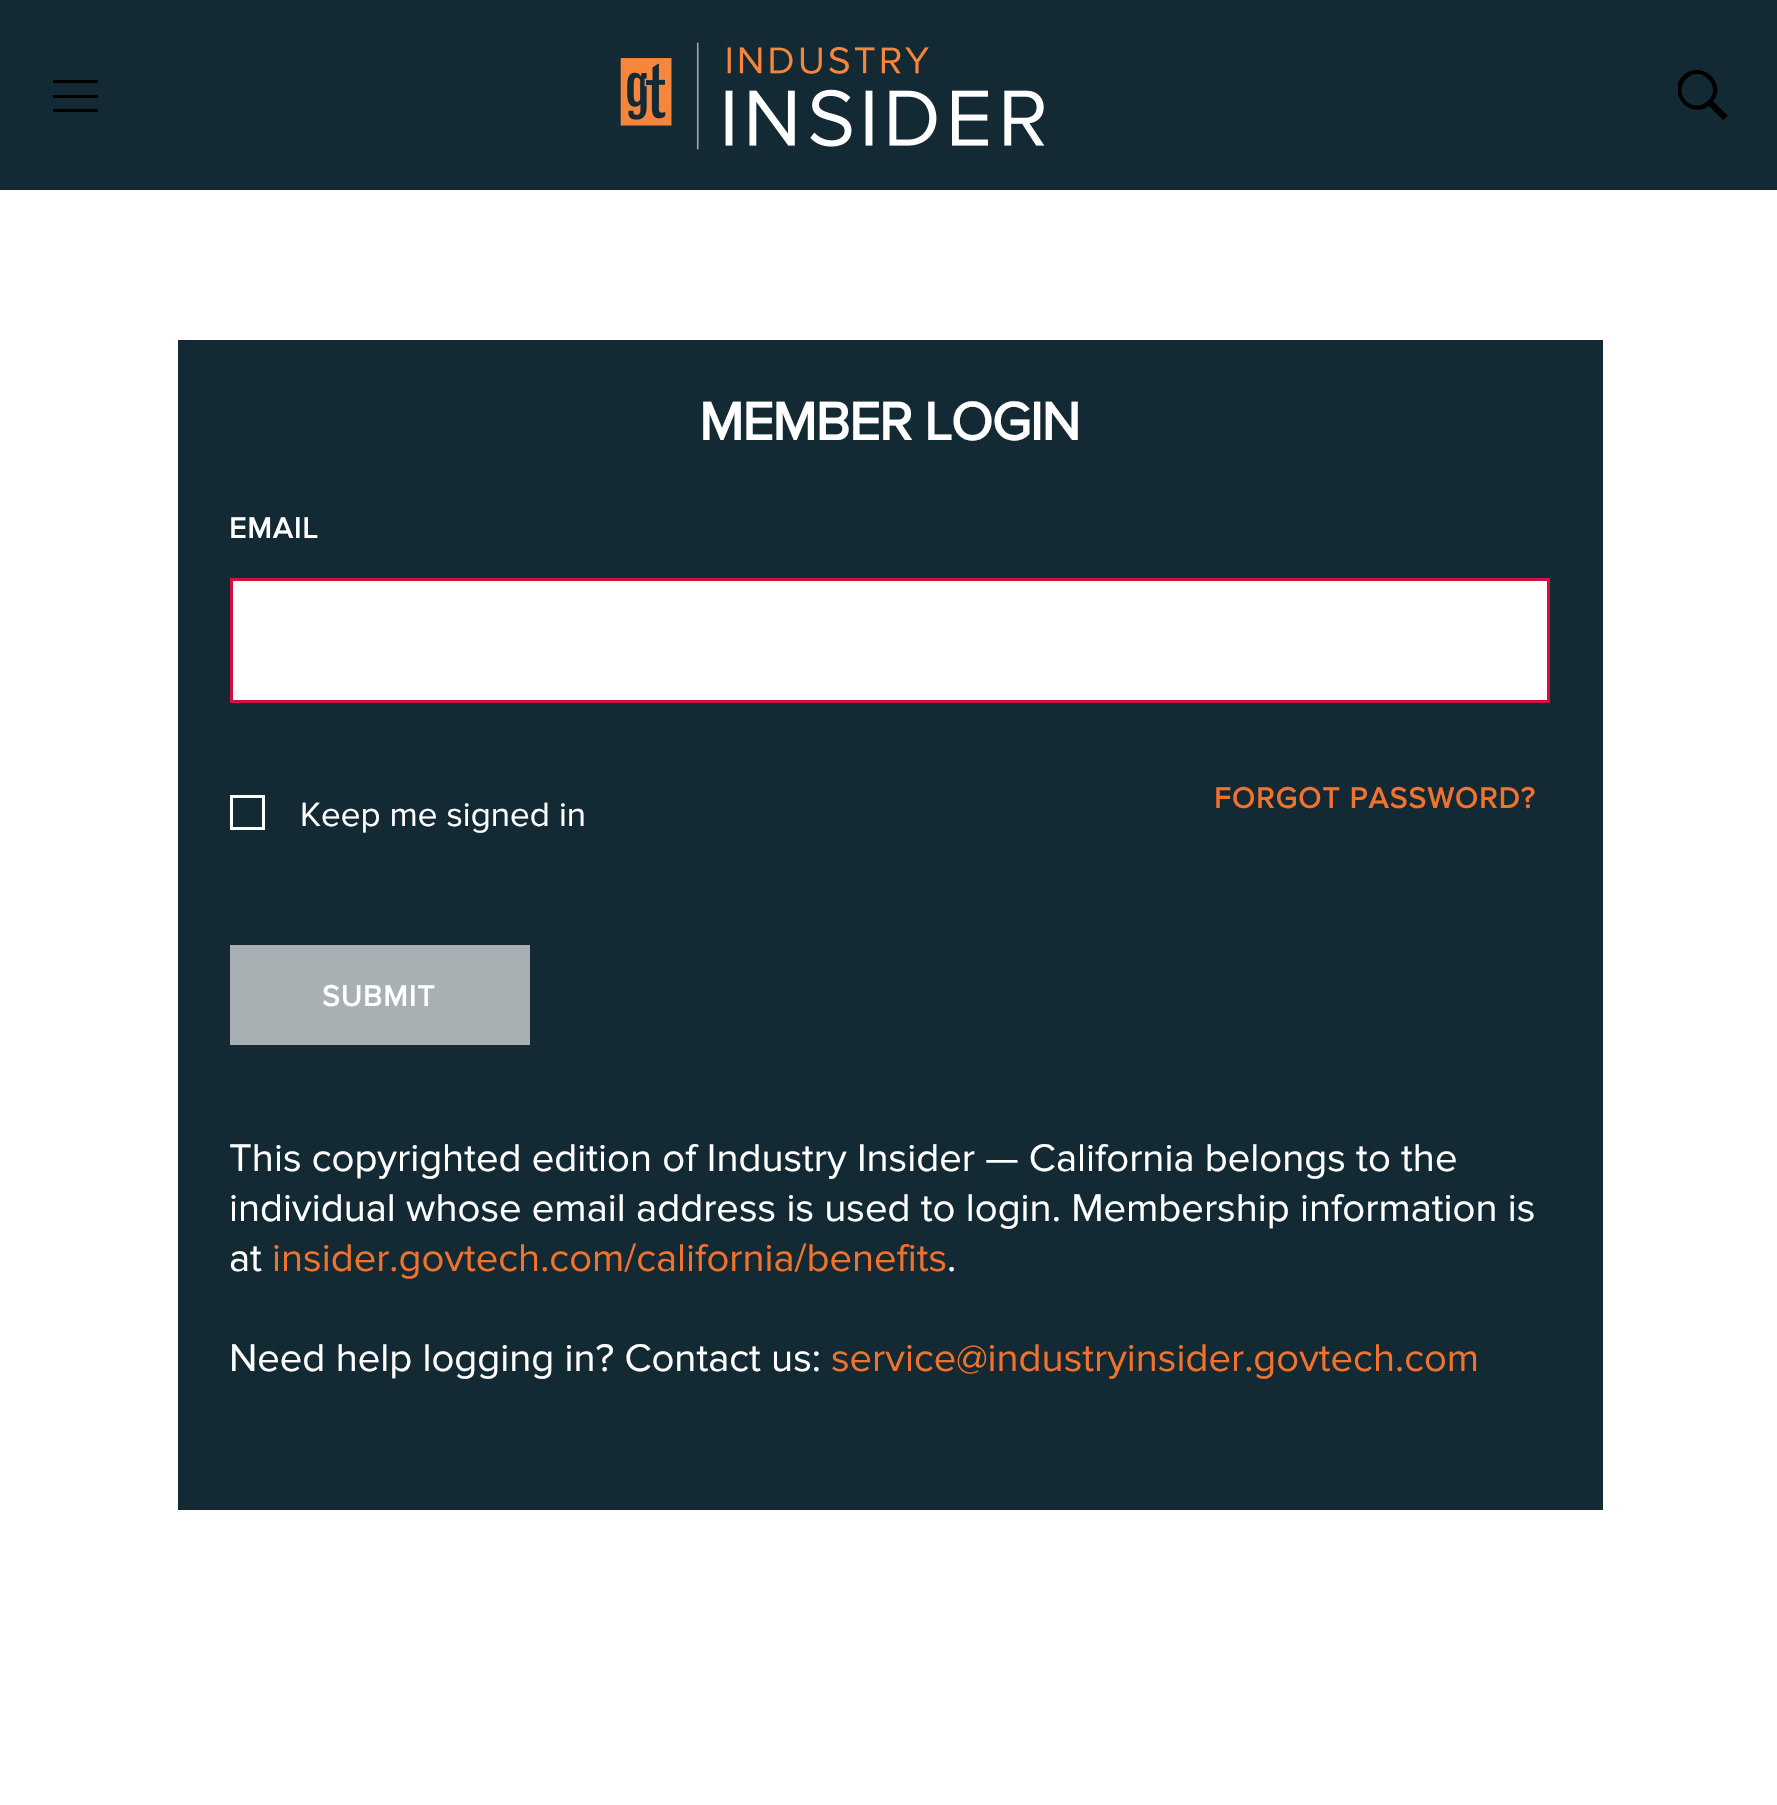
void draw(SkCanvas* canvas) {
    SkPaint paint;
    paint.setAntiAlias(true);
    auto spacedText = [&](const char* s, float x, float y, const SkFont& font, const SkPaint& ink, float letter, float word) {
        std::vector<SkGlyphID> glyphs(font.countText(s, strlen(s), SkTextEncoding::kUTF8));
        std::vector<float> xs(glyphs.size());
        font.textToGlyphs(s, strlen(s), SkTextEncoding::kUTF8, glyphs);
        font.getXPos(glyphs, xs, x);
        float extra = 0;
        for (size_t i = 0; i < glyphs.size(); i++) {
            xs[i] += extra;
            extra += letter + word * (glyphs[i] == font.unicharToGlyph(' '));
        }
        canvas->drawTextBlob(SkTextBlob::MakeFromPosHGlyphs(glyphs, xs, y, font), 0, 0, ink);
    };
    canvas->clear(0xFFFFFFFF);
    paint.setColor(0xFF132934);
    canvas->drawRect(SkRect::MakeXYWH(0, 0, 1777, 190), paint);
    canvas->save();
    canvas->clipRect(SkRect::MakeXYWH(53, 80, 45, 33));
    paint.setColor(0xFF000000);
    canvas->drawPath(SkPathBuilder(SkPathFillType::kEvenOdd).moveTo(52, 98).lineTo(52, 95).lineTo(98, 95).lineTo(98, 98).close().moveTo(52, 83).lineTo(52, 80).lineTo(98, 80).lineTo(98, 83).close().moveTo(52, 112).lineTo(52, 109).lineTo(98, 109).lineTo(98, 112).close().detach(), paint);
    canvas->restore();
    canvas->drawImageRect(SkImages::DeferredFromEncodedData(SkData::MakeFromFileName("img1.png")), SkRect::MakeXYWH(620, 42, 425, 108), SkSamplingOptions());
    canvas->save();
    canvas->clipRect(SkRect::MakeXYWH(1678, 70, 50, 50));
    canvas->drawPath(SkPathBuilder(SkPathFillType::kEvenOdd).moveTo(1714, 100).lineTo(1713, 101).lineTo(1728, 116).lineTo(1723, 120).lineTo(1709, 106).cubicTo(1687, 121, 1664, 88, 1686, 73).cubicTo(1691, 70, 1698, 69, 1703, 71).cubicTo(1710, 73, 1715, 79, 1717, 86).cubicTo(1718, 91, 1717, 96, 1714, 100).close().moveTo(1708, 79).cubicTo(1694, 64, 1672, 86, 1686, 101).cubicTo(1701, 115, 1723, 93, 1708, 79).close().detach(), paint);
    canvas->restore();
    paint.setColor(0xFF132934);
    canvas->drawRect(SkRect::MakeXYWH(178, 340, 1425, 1170), paint);
    SkFont font1(fontMgr->matchFamilyStyle("Proxima Nova", SkFontStyle::Bold()), 55);
    font1.setSubpixel(true);
    paint.setColor(0xFFFFFFFF);
    spacedText("MEMBER LOGIN", 699, 440, font1, paint, -1.25f, 0);
    SkFont font2(fontMgr->matchFamilyStyle("Proxima Nova", SkFontStyle::Bold()), 30);
    font2.setSubpixel(true);
    spacedText("EMAIL", 229, 538, font2, paint, 1.25f, 0);
    canvas->drawRect(SkRect::MakeXYWH(231.5f, 579.5f, 1317, 122), paint);
    paint.setStyle(SkPaint::kStroke_Style);
    paint.setStrokeWidth(3);
    paint.setColor(0xFFD31141);
    canvas->drawRect(SkRect::MakeXYWH(231.5f, 579.5f, 1317, 122), paint);
    paint.setStyle(SkPaint::kFill_Style);
    paint.setColor(0xFFF1722C);
    spacedText("FORGOT PASSWORD?", 1214, 808, font2, paint, 1.25f, 0);
    paint.setStyle(SkPaint::kStroke_Style);
    paint.setColor(0xFFFFFFFF);
    canvas->drawRect(SkRect::MakeXYWH(231.5f, 796.5f, 32, 32), paint);
    SkFont font3(fontMgr->matchFamilyStyle("Proxima Nova", SkFontStyle::Normal()), 35);
    font3.setSubpixel(true);
    paint.setStyle(SkPaint::kFill_Style);
    canvas->drawString("Keep me signed in", 300, 826, font3, paint);
    paint.setColor(0xFFA8B0B4);
    canvas->drawRect(SkRect::MakeXYWH(230, 945, 300, 100), paint);
    paint.setColor(0xFFFFFFFF);
    spacedText("SUBMIT", 322, 1006, font2, paint, 1.25f, 0);
    SkFont font4(fontMgr->matchFamilyStyle("Proxima Nova", SkFontStyle::Normal()), 40);
    font4.setSubpixel(true);
    canvas->drawString("This copyrighted edition of Industry Insider — California belongs to the", 229, 1171, font4, paint);
    canvas->drawString("individual whose email address is used to login. Membership information is", 229, 1221, font4, paint);
    canvas->drawString("at", 229, 1271, font4, paint);
    paint.setColor(0xFFF1722C);
    canvas->drawString("insider.govtech.com/california/benefits", 272, 1271, font4, paint);
    paint.setColor(0xFFFFFFFF);
    canvas->drawString(".", 947, 1271, font4, paint);
    canvas->drawString("Need help logging in? Contact us:", 229, 1371, font4, paint);
    paint.setColor(0xFFF1722C);
    canvas->drawString("service@industryinsider.govtech.com", 831, 1371, font4, paint);
}
